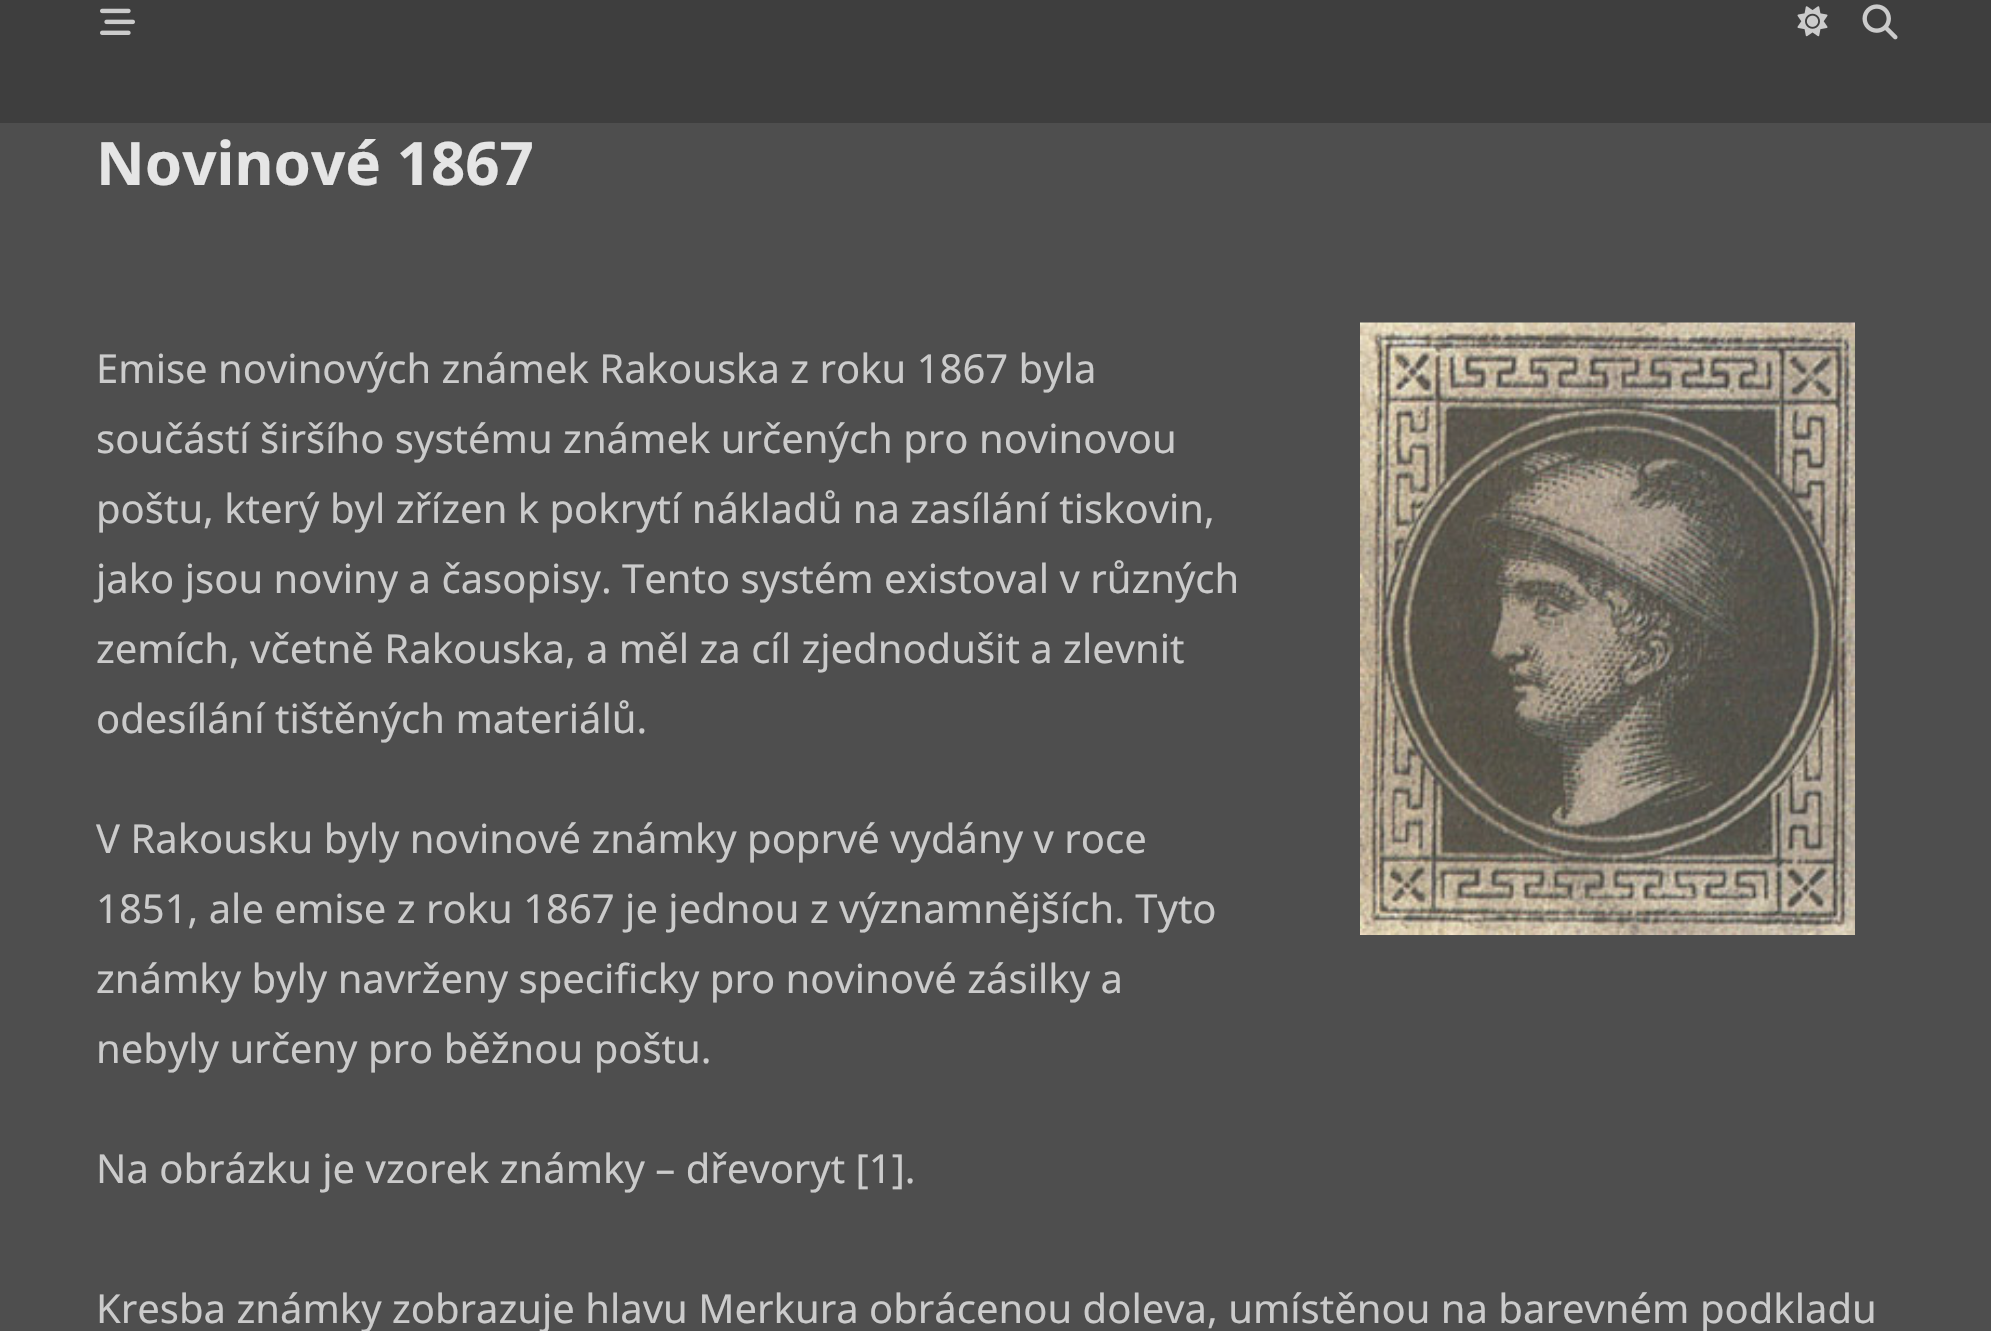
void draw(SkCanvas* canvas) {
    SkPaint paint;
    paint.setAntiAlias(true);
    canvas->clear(0xFF4E4E4E);
    paint.setColor(0xFF3E3E3E);
    canvas->drawRect(SkRect::MakeXYWH(0, 0, 1991, 123), paint);
    canvas->drawImageRect(SkImages::DeferredFromEncodedData(SkData::MakeFromFileName("img1.png")), SkRect::MakeXYWH(100, 8, 35, 27), SkSamplingOptions());
    canvas->drawImageRect(SkImages::DeferredFromEncodedData(SkData::MakeFromFileName("img2.png")), SkRect::MakeXYWH(1797, 6, 31, 31), SkSamplingOptions());
    canvas->drawImageRect(SkImages::DeferredFromEncodedData(SkData::MakeFromFileName("img3.png")), SkRect::MakeXYWH(1862, 4, 36, 36), SkSamplingOptions());
    SkFont font1(fontMgr->matchFamilyStyle("Noto Sans", SkFontStyle::Bold()), 60);
    font1.setSubpixel(true);
    paint.setColor(0xFFE5E5E5);
    canvas->drawString("Novinové 1867", 96, 185, font1, paint);
    SkFont font2(fontMgr->matchFamilyStyle("Noto Sans", SkFontStyle::Normal()), 40);
    font2.setSubpixel(true);
    paint.setColor(0xFFCBCBCB);
    canvas->drawString("Emise novinových známek Rakouska z roku 1867 byla", 96, 383, font2, paint);
    canvas->drawString("součástí širšího systému známek určených pro novinovou", 96, 453, font2, paint);
    canvas->drawString("poštu, který byl zřízen k pokrytí nákladů na zasílání tiskovin,", 96, 523, font2, paint);
    canvas->drawString("jako jsou noviny a časopisy. Tento systém existoval v různých", 96, 593, font2, paint);
    canvas->drawString("zemích, včetně Rakouska, a měl za cíl zjednodušit a zlevnit", 96, 663, font2, paint);
    canvas->drawString("odesílání tištěných materiálů.", 96, 733, font2, paint);
    canvas->drawString("V Rakousku byly novinové známky poprvé vydány v roce", 96, 853, font2, paint);
    canvas->drawString("1851, ale emise z roku 1867 je jednou z významnějších. Tyto", 96, 923, font2, paint);
    canvas->drawString("známky byly navrženy specificky pro novinové zásilky a", 96, 993, font2, paint);
    canvas->drawString("nebyly určeny pro běžnou poštu.", 96, 1063, font2, paint);
    canvas->drawString("Na obrázku je vzorek známky – dřevoryt [1].", 96, 1183, font2, paint);
    canvas->drawImageRect(SkImages::DeferredFromEncodedData(SkData::MakeFromFileName("img4.png")), SkRect::MakeXYWH(1360, 322, 495, 613), SkSamplingOptions());
    canvas->drawString("Kresba známky zobrazuje hlavu Merkura obrácenou doleva, umístěnou na barevném podkladu", 96, 1323, font2, paint);
}
